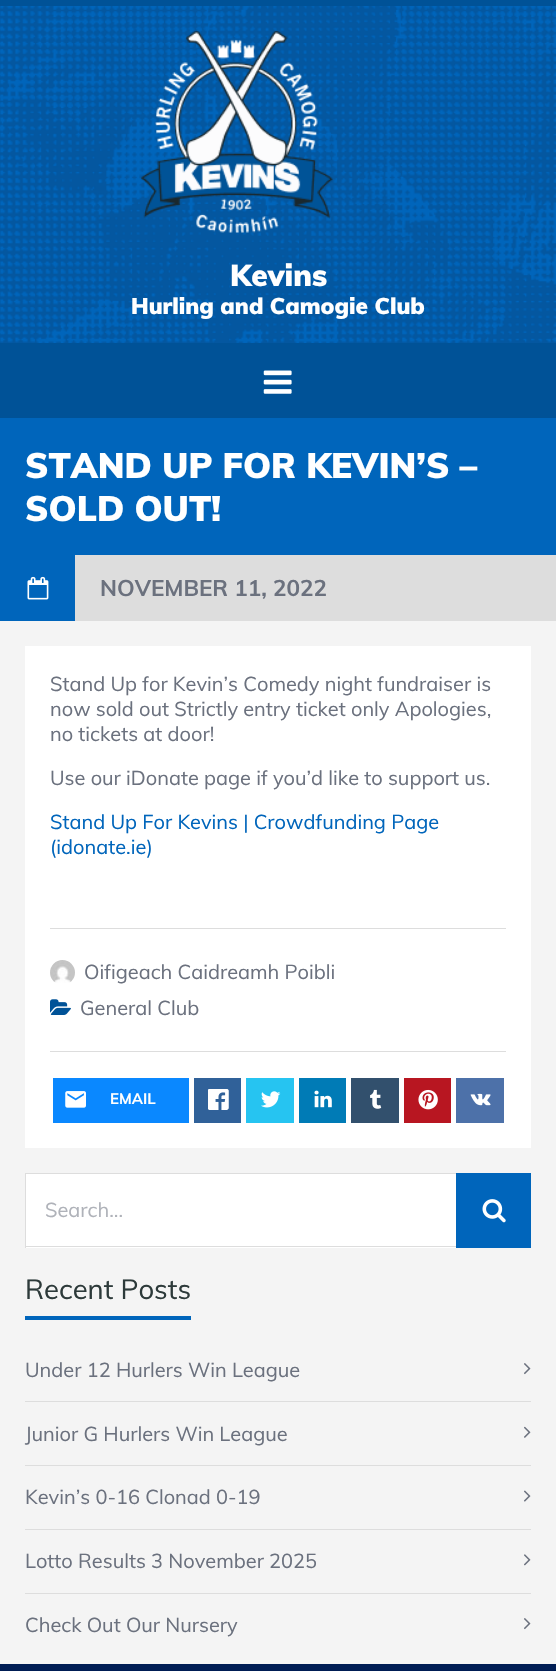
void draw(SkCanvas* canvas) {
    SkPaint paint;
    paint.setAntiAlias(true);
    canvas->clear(0xFFF4F4F4);
    paint.setColor(0xFF005297);
    canvas->drawRect(SkRect::MakeXYWH(0, 0, 556, 6), paint);
    canvas->drawImageRect(SkImages::DeferredFromEncodedData(SkData::MakeFromFileName("img1.png")), SkRect::MakeXYWH(0, 6, 556, 337), SkSamplingOptions());
    canvas->drawImageRect(SkImages::DeferredFromEncodedData(SkData::MakeFromFileName("img2.png")), SkRect::MakeXYWH(141, 31, 192, 202), SkSamplingOptions());
    SkFont font1(fontMgr->matchFamilyStyle("Muli", SkFontStyle(900, SkFontStyle::kNormal_Width, SkFontStyle::kUpright_Slant)), 30);
    font1.setSubpixel(true);
    paint.setColor(0xFFFFFFFF);
    canvas->drawString("Kevins", 230, 286, font1, paint);
    SkFont font2(fontMgr->matchFamilyStyle("Muli", SkFontStyle(900, SkFontStyle::kNormal_Width, SkFontStyle::kUpright_Slant)), 22.5f);
    font2.setSubpixel(true);
    canvas->drawString("Hurling and Camogie Club", 131, 314, font2, paint);
    paint.setColor(0xFF005297);
    canvas->drawRect(SkRect::MakeXYWH(0, 343, 556, 75), paint);
    canvas->drawImageRect(SkImages::DeferredFromEncodedData(SkData::MakeFromFileName("img3.png")), SkRect::MakeXYWH(263, 370, 29, 24), SkSamplingOptions());
    paint.setColor(0xFF0065BB);
    canvas->drawRect(SkRect::MakeXYWH(0, 418, 556, 137), paint);
    SkFont font3(fontMgr->matchFamilyStyle("Muli", SkFontStyle(900, SkFontStyle::kNormal_Width, SkFontStyle::kUpright_Slant)), 35);
    font3.setSubpixel(true);
    paint.setColor(0xFFFFFFFF);
    canvas->drawString("STAND UP FOR KEVIN’S –", 25, 478, font3, paint);
    canvas->drawString("SOLD OUT!", 25, 521, font3, paint);
    paint.setColor(0xFFDDDDDD);
    canvas->drawRect(SkRect::MakeXYWH(75, 555, 481, 66), paint);
    paint.setColor(0xFF0065BB);
    canvas->drawRect(SkRect::MakeXYWH(0, 555, 75, 66), paint);
    canvas->drawImageRect(SkImages::DeferredFromEncodedData(SkData::MakeFromFileName("img4.png")), SkRect::MakeXYWH(27, 576, 22, 24), SkSamplingOptions());
    SkFont font4(fontMgr->matchFamilyStyle("Muli", SkFontStyle::Bold()), 22.5f);
    font4.setSubpixel(true);
    paint.setColor(0xFF6B717E);
    canvas->drawString("NOVEMBER 11, 2022", 100, 596, font4, paint);
    paint.setColor(0xFFFFFFFF);
    canvas->drawRect(SkRect::MakeXYWH(25, 646, 506, 502), paint);
    SkFont font5(fontMgr->matchFamilyStyle("Muli", SkFontStyle::Normal()), 20);
    font5.setSubpixel(true);
    paint.setColor(0xFF6B717E);
    canvas->drawString("Stand Up for Kevin’s Comedy night fundraiser is", 50, 691, font5, paint);
    canvas->drawString("now sold out Strictly entry ticket only Apologies,", 50, 716, font5, paint);
    canvas->drawString("no tickets at door!", 50, 741, font5, paint);
    canvas->drawString("Use our iDonate page if you’d like to support us.", 50, 785, font5, paint);
    paint.setColor(0xFF0065BB);
    canvas->drawString("Stand Up For Kevins | Crowdfunding Page", 50, 829, font5, paint);
    canvas->drawString("(idonate.ie)", 50, 854, font5, paint);
    paint.setColor(0xFFDDDDDD);
    canvas->drawRect(SkRect::MakeXYWH(50, 928, 456, 1), paint);
    canvas->drawRect(SkRect::MakeXYWH(50, 1051, 456, 1), paint);
    canvas->drawImageRect(SkImages::DeferredFromEncodedData(SkData::MakeFromFileName("img5.png")), SkRect::MakeXYWH(50, 960, 25, 23), SkSamplingOptions());
    paint.setColor(0xFF6B717E);
    canvas->drawString("Oifigeach Caidreamh Poibli", 84, 979, font5, paint);
    canvas->drawImageRect(SkImages::DeferredFromEncodedData(SkData::MakeFromFileName("img6.png")), SkRect::MakeXYWH(50, 999, 21, 16), SkSamplingOptions());
    canvas->drawString("General Club", 80, 1015, font5, paint);
    paint.setColor(0xFF0A88FF);
    canvas->drawRect(SkRect::MakeXYWH(53, 1078, 136, 45), paint);
    canvas->drawImageRect(SkImages::DeferredFromEncodedData(SkData::MakeFromFileName("img7.png")), SkRect::MakeXYWH(65, 1091, 21, 17), SkSamplingOptions());
    SkFont font6(fontMgr->matchFamilyStyle("Muli", SkFontStyle::Bold()), 15);
    font6.setSubpixel(true);
    paint.setColor(0xFFFFFFFF);
    canvas->drawString("EMAIL", 110, 1104, font6, paint);
    paint.setColor(0xFF306199);
    canvas->drawRect(SkRect::MakeXYWH(194, 1078, 47, 45), paint);
    canvas->drawImageRect(SkImages::DeferredFromEncodedData(SkData::MakeFromFileName("img8.png")), SkRect::MakeXYWH(208, 1089, 21, 21), SkSamplingOptions());
    paint.setColor(0xFF26C4F1);
    canvas->drawRect(SkRect::MakeXYWH(246, 1078, 48, 45), paint);
    canvas->drawImageRect(SkImages::DeferredFromEncodedData(SkData::MakeFromFileName("img9.png")), SkRect::MakeXYWH(261, 1091, 20, 17), SkSamplingOptions());
    paint.setColor(0xFF007BB6);
    canvas->drawRect(SkRect::MakeXYWH(299, 1078, 47, 45), paint);
    canvas->drawImageRect(SkImages::DeferredFromEncodedData(SkData::MakeFromFileName("img10.png")), SkRect::MakeXYWH(314, 1090, 18, 18), SkSamplingOptions());
    paint.setColor(0xFF32506D);
    canvas->drawRect(SkRect::MakeXYWH(351, 1078, 48, 45), paint);
    canvas->drawImageRect(SkImages::DeferredFromEncodedData(SkData::MakeFromFileName("img11.png")), SkRect::MakeXYWH(370, 1089, 12, 20), SkSamplingOptions());
    paint.setColor(0xFFB81621);
    canvas->drawRect(SkRect::MakeXYWH(404, 1078, 47, 45), paint);
    canvas->drawImageRect(SkImages::DeferredFromEncodedData(SkData::MakeFromFileName("img12.png")), SkRect::MakeXYWH(418, 1089, 20, 21), SkSamplingOptions());
    paint.setColor(0xFF4D71A9);
    canvas->drawRect(SkRect::MakeXYWH(456, 1078, 48, 45), paint);
    canvas->drawImageRect(SkImages::DeferredFromEncodedData(SkData::MakeFromFileName("img13.png")), SkRect::MakeXYWH(470, 1093, 21, 13), SkSamplingOptions());
    paint.setColor(0xFFFFFFFF);
    canvas->drawRect(SkRect::MakeXYWH(26, 1174, 430, 74), paint);
    paint.setColor(0xFFDDDDDD);
    canvas->drawRect(SkRect::MakeXYWH(25, 1173, 431, 1), paint);
    canvas->drawRect(SkRect::MakeXYWH(25, 1246, 431, 1), paint);
    canvas->drawRect(SkRect::MakeXYWH(25, 1173, 1, 75), paint);
    paint.setColor(0xFFAFB2B9);
    canvas->drawString("Search...", 45, 1217, font5, paint);
    paint.setColor(0xFF0065BB);
    canvas->drawRect(SkRect::MakeXYWH(456, 1173, 75, 75), paint);
    canvas->drawImageRect(SkImages::DeferredFromEncodedData(SkData::MakeFromFileName("img14.png")), SkRect::MakeXYWH(482, 1199, 24, 24), SkSamplingOptions());
    canvas->drawRect(SkRect::MakeXYWH(25, 1316, 166, 4), paint);
    SkFont font7(fontMgr->matchFamilyStyle("Muli", SkFontStyle::Normal()), 27.5f);
    font7.setSubpixel(true);
    paint.setColor(0xFF2D3A3A);
    canvas->drawString("Recent Posts", 25, 1299, font7, paint);
    paint.setColor(0xFFDDDDDD);
    canvas->drawRect(SkRect::MakeXYWH(25, 1401, 506, 1), paint);
    paint.setColor(0xFF6B717E);
    canvas->drawString("Under 12 Hurlers Win League", 25, 1377, font5, paint);
    canvas->drawImageRect(SkImages::DeferredFromEncodedData(SkData::MakeFromFileName("img15.png")), SkRect::MakeXYWH(524, 1363, 7, 12), SkSamplingOptions());
    paint.setColor(0xFFDDDDDD);
    canvas->drawRect(SkRect::MakeXYWH(25, 1465, 506, 1), paint);
    paint.setColor(0xFF6B717E);
    canvas->drawString("Junior G Hurlers Win League", 25, 1441, font5, paint);
    canvas->drawImageRect(SkImages::DeferredFromEncodedData(SkData::MakeFromFileName("img16.png")), SkRect::MakeXYWH(524, 1426, 7, 12), SkSamplingOptions());
    paint.setColor(0xFFDDDDDD);
    canvas->drawRect(SkRect::MakeXYWH(25, 1529, 506, 1), paint);
    paint.setColor(0xFF6B717E);
    canvas->drawString("Kevin’s 0-16 Clonad 0-19", 25, 1504, font5, paint);
    canvas->drawImageRect(SkImages::DeferredFromEncodedData(SkData::MakeFromFileName("img17.png")), SkRect::MakeXYWH(524, 1490, 7, 12), SkSamplingOptions());
    paint.setColor(0xFFDDDDDD);
    canvas->drawRect(SkRect::MakeXYWH(25, 1593, 506, 1), paint);
    paint.setColor(0xFF6B717E);
    canvas->drawString("Lotto Results 3 November 2025", 25, 1568, font5, paint);
    canvas->drawImageRect(SkImages::DeferredFromEncodedData(SkData::MakeFromFileName("img18.png")), SkRect::MakeXYWH(524, 1554, 7, 12), SkSamplingOptions());
    canvas->drawString("Check Out Our Nursery", 25, 1632, font5, paint);
    canvas->drawImageRect(SkImages::DeferredFromEncodedData(SkData::MakeFromFileName("img15.png")), SkRect::MakeXYWH(524, 1618, 7, 12), SkSamplingOptions());
    paint.setColor(0xFF001D54);
    canvas->drawRect(SkRect::MakeXYWH(0, 1664, 556, 7), paint);
}
